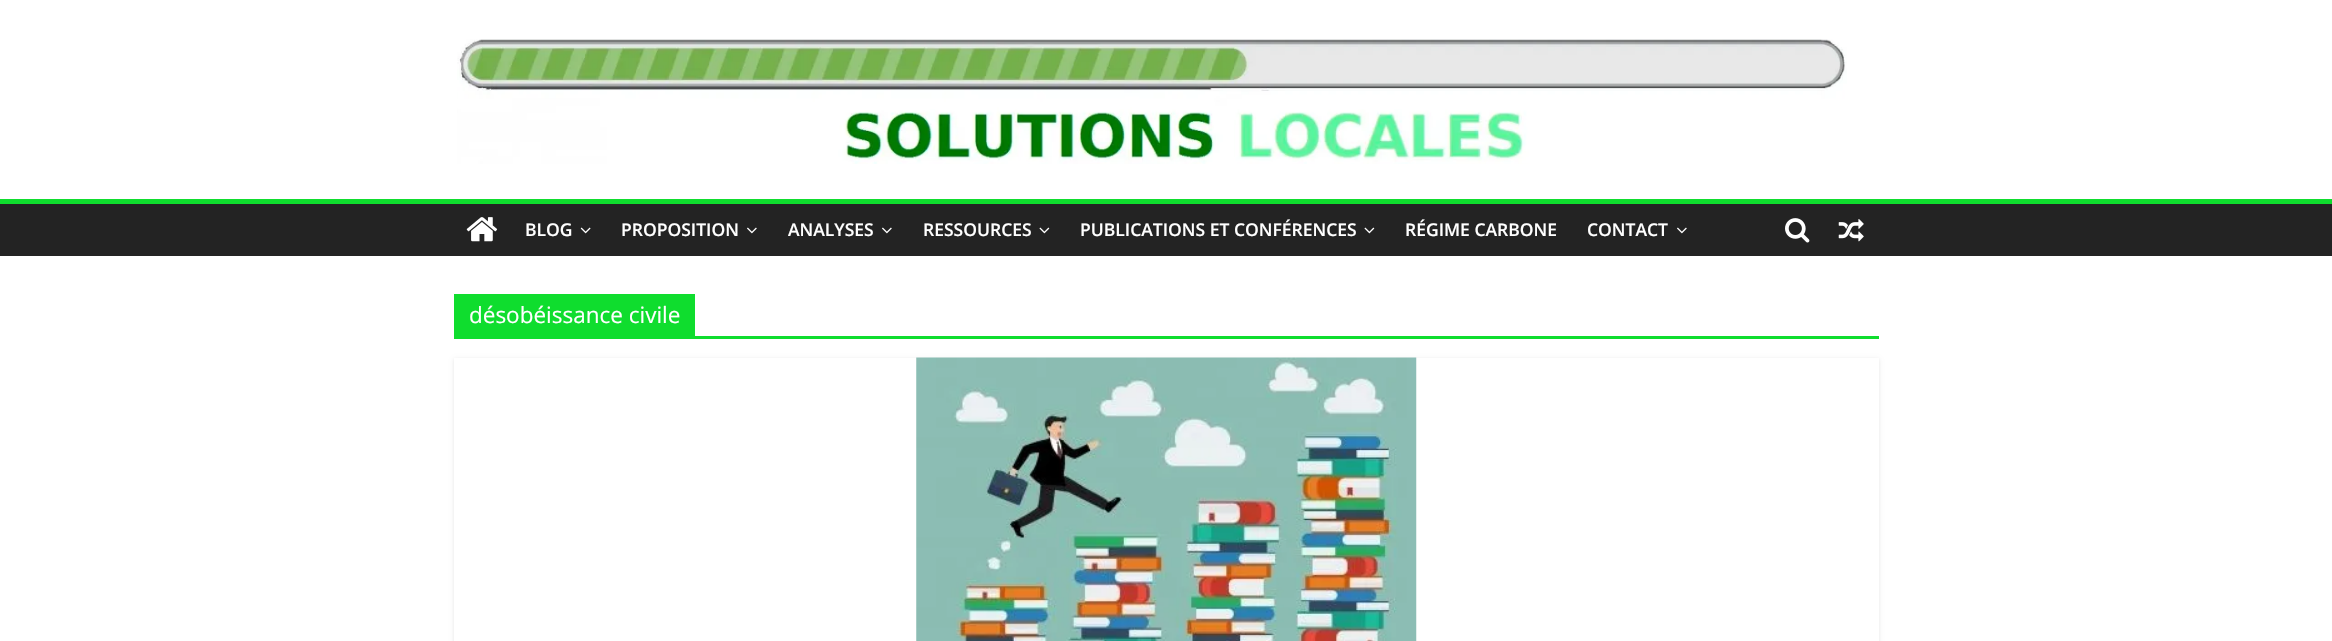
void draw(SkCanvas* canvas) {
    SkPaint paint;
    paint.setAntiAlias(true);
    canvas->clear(0xFFFFFFFF);
    canvas->drawImageRect(SkImages::DeferredFromEncodedData(SkData::MakeFromFileName("img1.png")), SkRect::MakeXYWH(457, 39, 1390, 125), SkSamplingOptions());
    paint.setColor(0xFF232323);
    canvas->drawRect(SkRect::MakeXYWH(0, 204, 2332, 52), paint);
    paint.setColor(0xFF0FDD2E);
    canvas->drawRect(SkRect::MakeXYWH(0, 199, 2332, 5), paint);
    canvas->drawImageRect(SkImages::DeferredFromEncodedData(SkData::MakeFromFileName("img2.png")), SkRect::MakeXYWH(466, 217, 32, 25), SkSamplingOptions());
    SkFont font1(fontMgr->matchFamilyStyle("Open Sans", SkFontStyle(600, SkFontStyle::kNormal_Width, SkFontStyle::kUpright_Slant)), 17.5f);
    font1.setSubpixel(true);
    paint.setColor(0xFFFFFFFF);
    canvas->drawString("BLOG", 525, 236, font1, paint);
    canvas->drawImageRect(SkImages::DeferredFromEncodedData(SkData::MakeFromFileName("img3.png")), SkRect::MakeXYWH(580, 227, 11, 7), SkSamplingOptions());
    canvas->drawString("PROPOSITION", 621, 236, font1, paint);
    canvas->drawImageRect(SkImages::DeferredFromEncodedData(SkData::MakeFromFileName("img4.png")), SkRect::MakeXYWH(747, 227, 10, 7), SkSamplingOptions());
    canvas->drawString("ANALYSES", 788, 236, font1, paint);
    canvas->drawImageRect(SkImages::DeferredFromEncodedData(SkData::MakeFromFileName("img4.png")), SkRect::MakeXYWH(882, 227, 10, 7), SkSamplingOptions());
    canvas->drawString("RESSOURCES", 923, 236, font1, paint);
    canvas->drawImageRect(SkImages::DeferredFromEncodedData(SkData::MakeFromFileName("img5.png")), SkRect::MakeXYWH(1039, 227, 11, 7), SkSamplingOptions());
    canvas->drawString("PUBLICATIONS ET CONFÉRENCES", 1080, 236, font1, paint);
    canvas->drawImageRect(SkImages::DeferredFromEncodedData(SkData::MakeFromFileName("img5.png")), SkRect::MakeXYWH(1364, 227, 11, 7), SkSamplingOptions());
    canvas->drawString("RÉGIME CARBONE", 1405, 236, font1, paint);
    canvas->drawString("CONTACT", 1587, 236, font1, paint);
    canvas->drawImageRect(SkImages::DeferredFromEncodedData(SkData::MakeFromFileName("img4.png")), SkRect::MakeXYWH(1677, 227, 10, 7), SkSamplingOptions());
    canvas->drawImageRect(SkImages::DeferredFromEncodedData(SkData::MakeFromFileName("img6.png")), SkRect::MakeXYWH(1785, 218, 25, 25), SkSamplingOptions());
    canvas->drawImageRect(SkImages::DeferredFromEncodedData(SkData::MakeFromFileName("img7.png")), SkRect::MakeXYWH(1838, 219, 26, 23), SkSamplingOptions());
    paint.setColor(0xFF0FDD2E);
    canvas->drawRect(SkRect::MakeXYWH(454, 336, 1425, 3), paint);
    canvas->drawRect(SkRect::MakeXYWH(454, 294, 241, 42), paint);
    SkFont font2(fontMgr->matchFamilyStyle("Open Sans", SkFontStyle::Normal()), 22.5f);
    font2.setSubpixel(true);
    paint.setColor(0xFFFFFFFF);
    canvas->drawString("désobéissance civile", 469, 323, font2, paint);
    canvas->save();
    canvas->clipPath(SkPathBuilder(SkPathFillType::kEvenOdd).moveTo(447, 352).lineTo(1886, 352).lineTo(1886, 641).lineTo(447, 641).close().moveTo(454, 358).lineTo(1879, 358).lineTo(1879, 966).lineTo(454, 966).close().detach(), true);
    paint.setColor(0x1A000000);
    paint.setMaskFilter(SkMaskFilter::MakeBlur(kNormal_SkBlurStyle, 2));
    canvas->drawRect(SkRect::MakeXYWH(454, 359, 1425, 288), paint);
    paint.setMaskFilter(nullptr);
    canvas->restore();
    canvas->drawImageRect(SkImages::DeferredFromEncodedData(SkData::MakeFromFileName("img8.png")), SkRect::MakeXYWH(916, 357, 501, 284), SkSamplingOptions());
}
